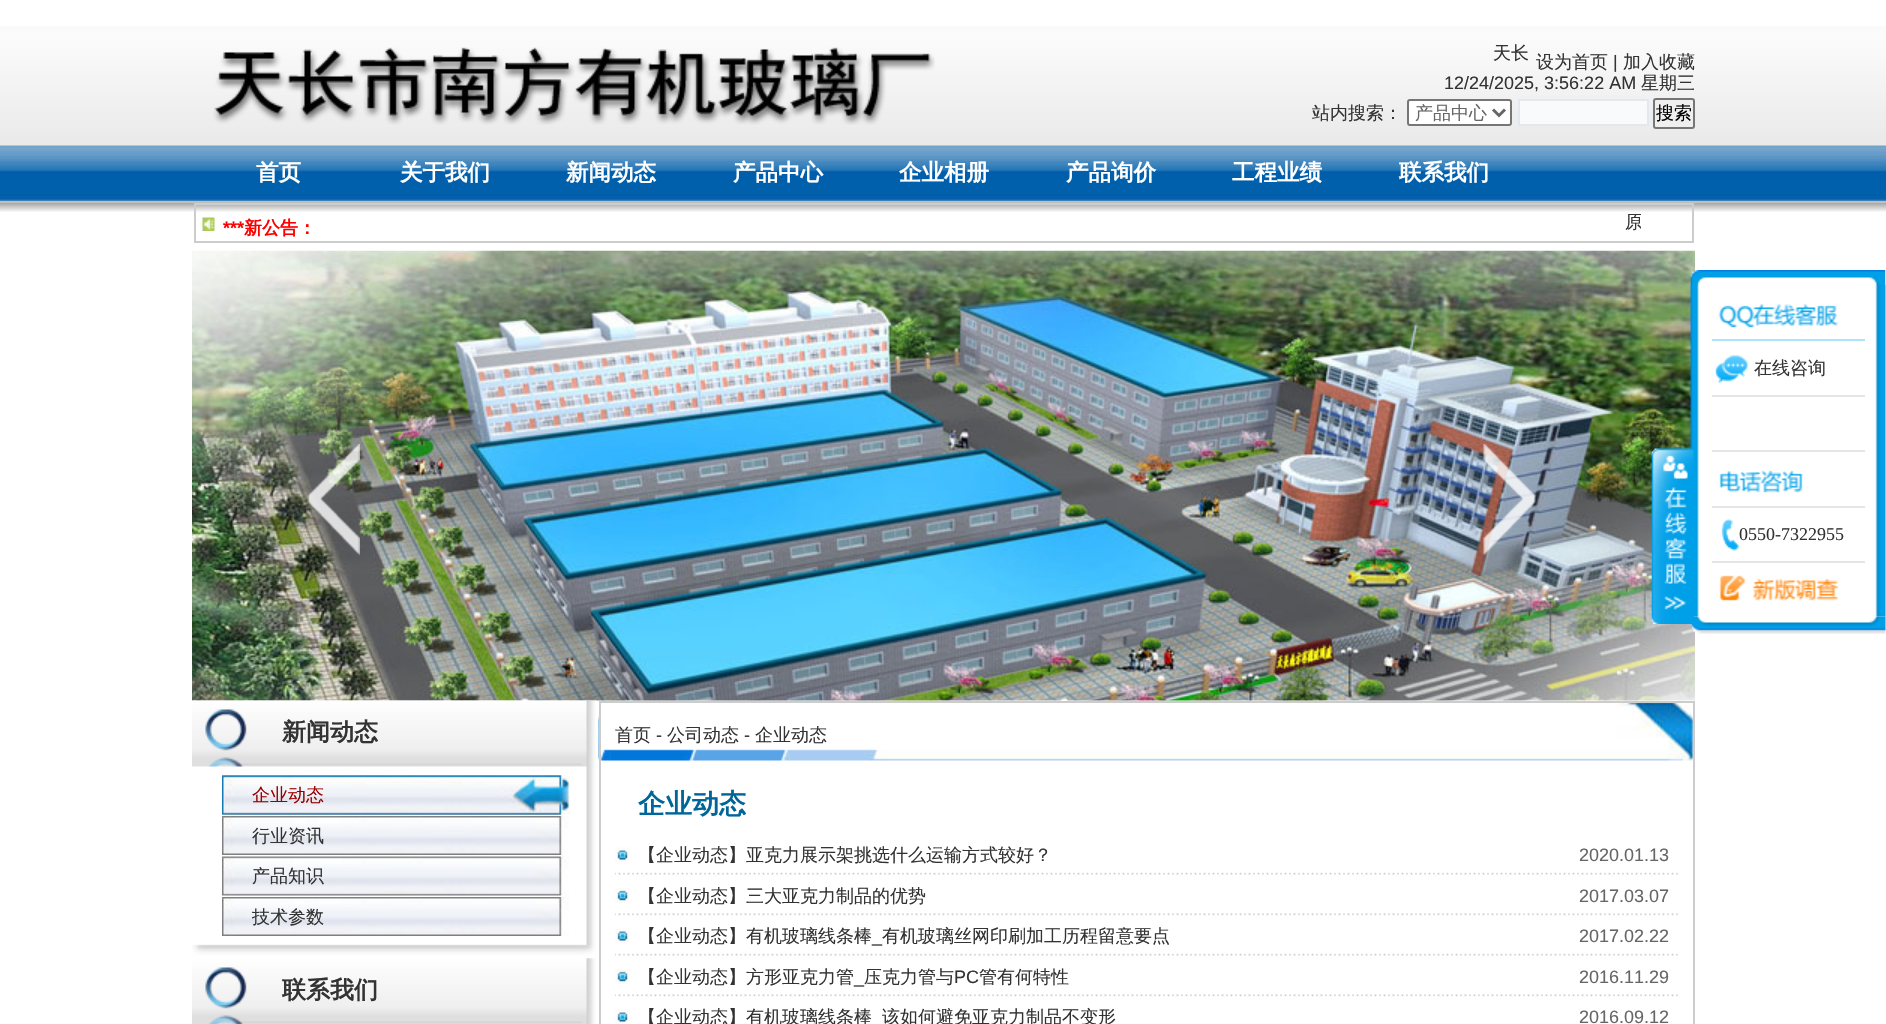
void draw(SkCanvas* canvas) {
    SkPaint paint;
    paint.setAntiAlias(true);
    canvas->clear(0xFFFFFFFF);
    canvas->drawImageRect(SkImages::DeferredFromEncodedData(SkData::MakeFromFileName("img1.png")), SkRect::MakeXYWH(0, 26, 1886, 186), SkSamplingOptions());
    canvas->drawImageRect(SkImages::DeferredFromEncodedData(SkData::MakeFromFileName("img2.png")), SkRect::MakeXYWH(213, 47, 722, 78), SkSamplingOptions());
    SkFont font1(fontMgr->matchFamilyStyle("WenQuanYi Zen Hei", SkFontStyle(500, SkFontStyle::kNormal_Width, SkFontStyle::kUpright_Slant)), 18);
    font1.setSubpixel(true);
    paint.setColor(0xFF333333);
    canvas->drawString("天长", 1493, 59, font1, paint);
    canvas->drawString("设为首页", 1536, 68, font1, paint);
    SkFont font2(fontMgr->matchFamilyStyle("Liberation Sans", SkFontStyle::Normal()), 18);
    font2.setSubpixel(true);
    canvas->drawString("|", 1613, 68, font2, paint);
    canvas->drawString("加入收藏", 1623, 68, font1, paint);
    canvas->drawString("12/24/2025, 3:56:22 AM", 1444, 89, font2, paint);
    canvas->drawString("星期三", 1641, 89, font1, paint);
    canvas->drawString("站内搜索：", 1312, 119, font1, paint);
    paint.setColor(0xFFFFFFFF);
    canvas->drawRoundRect(SkRect::MakeXYWH(1408, 100, 103, 25), 2, 2, paint);
    paint.setStyle(SkPaint::kStroke_Style);
    paint.setStrokeWidth(2);
    paint.setColor(0xFF767676);
    canvas->drawRoundRect(SkRect::MakeXYWH(1408, 100, 103, 25), 2, 2, paint);
    paint.setStrokeWidth(3);
    paint.setColor(0xFF666666);
    canvas->drawPath(SkPathBuilder().moveTo(1493, 109.5f).lineTo(1499, 115.5f).lineTo(1505, 109.5f).detach(), paint);
    paint.setStyle(SkPaint::kFill_Style);
    canvas->drawString("产品中心", 1415, 119, font1, paint);
    paint.setColor(0xFFF9FAFB);
    canvas->drawRect(SkRect::MakeXYWH(1519, 100, 129, 25), paint);
    paint.setStyle(SkPaint::kStroke_Style);
    paint.setStrokeWidth(2);
    paint.setColor(0xFFE2E8EE);
    canvas->drawRect(SkRect::MakeXYWH(1519, 100, 129, 25), paint);
    paint.setStyle(SkPaint::kFill_Style);
    paint.setColor(0xFFEFEFEF);
    canvas->drawRoundRect(SkRect::MakeXYWH(1654, 99, 40, 29), 2, 2, paint);
    paint.setStyle(SkPaint::kStroke_Style);
    paint.setColor(0xFF767676);
    canvas->drawRoundRect(SkRect::MakeXYWH(1654, 99, 40, 29), 2, 2, paint);
    paint.setStyle(SkPaint::kFill_Style);
    paint.setColor(0xFF000000);
    canvas->drawString("搜索", 1656, 119, font1, paint);
    SkFont font3(fontMgr->matchFamilyStyle("WenQuanYi Zen Hei", SkFontStyle::Bold()), 22.5f);
    font3.setSubpixel(true);
    paint.setColor(0xFFFFFFFF);
    canvas->drawString("首页", 256, 180, font3, paint);
    canvas->drawString("关于我们", 400, 180, font3, paint);
    canvas->drawString("新闻动态", 566, 180, font3, paint);
    canvas->drawString("产品中心", 733, 180, font3, paint);
    canvas->drawString("企业相册", 899, 180, font3, paint);
    canvas->drawString("产品询价", 1066, 180, font3, paint);
    canvas->drawString("工程业绩", 1232, 180, font3, paint);
    canvas->drawString("联系我们", 1399, 180, font3, paint);
    canvas->drawImageRect(SkImages::DeferredFromEncodedData(SkData::MakeFromFileName("img3.png")), SkRect::MakeXYWH(202, 217, 13, 14), SkSamplingOptions());
    paint.setStyle(SkPaint::kStroke_Style);
    paint.setColor(0xFFCCCCCC);
    canvas->drawRect(SkRect::MakeXYWH(195, 204, 1498, 38), paint);
    SkFont font4(fontMgr->matchFamilyStyle("Liberation Sans", SkFontStyle::Bold()), 18);
    font4.setSubpixel(true);
    paint.setStyle(SkPaint::kFill_Style);
    paint.setColor(0xFFFF0000);
    canvas->drawString("***", 223, 234, font4, paint);
    SkFont font5(fontMgr->matchFamilyStyle("WenQuanYi Zen Hei", SkFontStyle::Bold()), 18);
    font5.setSubpixel(true);
    canvas->drawString("新公告：", 244, 234, font5, paint);
    canvas->save();
    canvas->clipRect(SkRect::MakeXYWH(321, 204, 1320, 30));
    paint.setColor(0xFF333333);
    canvas->drawString("原", 1625, 228, font1, paint);
    canvas->restore();
    canvas->drawImageRect(SkImages::DeferredFromEncodedData(SkData::MakeFromFileName("img4.png")), SkRect::MakeXYWH(192, 250, 1503, 451), SkSamplingOptions());
    canvas->drawImageRect(SkImages::DeferredFromEncodedData(SkData::MakeFromFileName("img5.png")), SkRect::MakeXYWH(307, 444, 53, 111), SkSamplingOptions());
    canvas->drawImageRect(SkImages::DeferredFromEncodedData(SkData::MakeFromFileName("img6.png")), SkRect::MakeXYWH(1483, 444, 53, 111), SkSamplingOptions());
    canvas->drawImageRect(SkImages::DeferredFromEncodedData(SkData::MakeFromFileName("img7.png")), SkRect::MakeXYWH(192, 700, 405, 324), SkSamplingOptions());
    canvas->drawImageRect(SkImages::DeferredFromEncodedData(SkData::MakeFromFileName("img8.png")), SkRect::MakeXYWH(192, 700, 405, 67), SkSamplingOptions());
    SkFont font6(fontMgr->matchFamilyStyle("WenQuanYi Zen Hei", SkFontStyle::Bold()), 24);
    font6.setSubpixel(true);
    canvas->drawString("新闻动态", 282, 740, font6, paint);
    canvas->drawImageRect(SkImages::DeferredFromEncodedData(SkData::MakeFromFileName("img9.png")), SkRect::MakeXYWH(222, 775, 347, 40), SkSamplingOptions());
    canvas->drawImageRect(SkImages::DeferredFromEncodedData(SkData::MakeFromFileName("img10.png")), SkRect::MakeXYWH(222, 775, 348, 40), SkSamplingOptions());
    paint.setColor(0xFF990000);
    canvas->drawString("企业动态", 252, 801, font1, paint);
    canvas->drawImageRect(SkImages::DeferredFromEncodedData(SkData::MakeFromFileName("img11.png")), SkRect::MakeXYWH(222, 816, 347, 39), SkSamplingOptions());
    paint.setColor(0xFF333333);
    canvas->drawString("行业资讯", 252, 842, font1, paint);
    canvas->drawImageRect(SkImages::DeferredFromEncodedData(SkData::MakeFromFileName("img9.png")), SkRect::MakeXYWH(222, 856, 347, 40), SkSamplingOptions());
    canvas->drawString("产品知识", 252, 882, font1, paint);
    canvas->drawImageRect(SkImages::DeferredFromEncodedData(SkData::MakeFromFileName("img11.png")), SkRect::MakeXYWH(222, 897, 347, 39), SkSamplingOptions());
    canvas->drawString("技术参数", 252, 923, font1, paint);
    canvas->drawImageRect(SkImages::DeferredFromEncodedData(SkData::MakeFromFileName("img12.png")), SkRect::MakeXYWH(192, 944, 403, 15), SkSamplingOptions());
    canvas->drawImageRect(SkImages::DeferredFromEncodedData(SkData::MakeFromFileName("img13.png")), SkRect::MakeXYWH(192, 958, 401, 66), SkSamplingOptions());
    canvas->drawString("联系我们", 282, 998, font6, paint);
    canvas->drawImageRect(SkImages::DeferredFromEncodedData(SkData::MakeFromFileName("img14.png")), SkRect::MakeXYWH(598, 702, 1095, 59), SkSamplingOptions());
    paint.setStyle(SkPaint::kStroke_Style);
    paint.setColor(0xFFCCCCCC);
    canvas->drawRect(SkRect::MakeXYWH(600, 702, 1094, 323), paint);
    paint.setStyle(SkPaint::kFill_Style);
    paint.setColor(0xFF333333);
    canvas->drawString("首页", 615, 741, font1, paint);
    canvas->drawString("-", 656, 741, font2, paint);
    canvas->drawString("公司动态", 667, 741, font1, paint);
    canvas->drawString("-", 744, 741, font2, paint);
    canvas->drawString("企业动态", 755, 741, font1, paint);
    SkFont font7(fontMgr->matchFamilyStyle("WenQuanYi Zen Hei", SkFontStyle::Bold()), 27);
    font7.setSubpixel(true);
    paint.setColor(0xFF006699);
    canvas->drawString("企业动态", 638, 813, font7, paint);
    canvas->drawImageRect(SkImages::DeferredFromEncodedData(SkData::MakeFromFileName("img15.png")), SkRect::MakeXYWH(615, 847, 15, 15), SkSamplingOptions());
    paint.setColor(0xFF333333);
    canvas->drawString("【企业动态】亚克力展示架挑选什么运输方式较好？", 638, 861, font1, paint);
    paint.setColor(0xFF666666);
    canvas->drawString("2020.01.13", 1579, 861, font2, paint);
    canvas->drawImageRect(SkImages::DeferredFromEncodedData(SkData::MakeFromFileName("img16.png")), SkRect::MakeXYWH(615, 872, 1063, 3), SkSamplingOptions());
    canvas->drawImageRect(SkImages::DeferredFromEncodedData(SkData::MakeFromFileName("img17.png")), SkRect::MakeXYWH(615, 888, 15, 15), SkSamplingOptions());
    paint.setColor(0xFF333333);
    canvas->drawString("【企业动态】三大亚克力制品的优势", 638, 902, font1, paint);
    paint.setColor(0xFF666666);
    canvas->drawString("2017.03.07", 1579, 902, font2, paint);
    canvas->drawImageRect(SkImages::DeferredFromEncodedData(SkData::MakeFromFileName("img18.png")), SkRect::MakeXYWH(615, 913, 1063, 3), SkSamplingOptions());
    canvas->drawImageRect(SkImages::DeferredFromEncodedData(SkData::MakeFromFileName("img15.png")), SkRect::MakeXYWH(615, 928, 15, 15), SkSamplingOptions());
    paint.setColor(0xFF333333);
    canvas->drawString("【企业动态】有机玻璃线条棒", 638, 942, font1, paint);
    canvas->drawString("_", 872, 942, font2, paint);
    canvas->drawString("有机玻璃丝网印刷加工历程留意要点", 882, 942, font1, paint);
    paint.setColor(0xFF666666);
    canvas->drawString("2017.02.22", 1579, 942, font2, paint);
    canvas->drawImageRect(SkImages::DeferredFromEncodedData(SkData::MakeFromFileName("img19.png")), SkRect::MakeXYWH(615, 953, 1063, 3), SkSamplingOptions());
    canvas->drawImageRect(SkImages::DeferredFromEncodedData(SkData::MakeFromFileName("img17.png")), SkRect::MakeXYWH(615, 969, 15, 15), SkSamplingOptions());
    paint.setColor(0xFF333333);
    canvas->drawString("【企业动态】方形亚克力管", 638, 983, font1, paint);
    canvas->drawString("_", 854, 983, font2, paint);
    canvas->drawString("压克力管与", 864, 983, font1, paint);
    canvas->drawString("PC", 954, 983, font2, paint);
    canvas->drawString("管有何特性", 979, 983, font1, paint);
    paint.setColor(0xFF666666);
    canvas->drawString("2016.11.29", 1579, 983, font2, paint);
    canvas->drawImageRect(SkImages::DeferredFromEncodedData(SkData::MakeFromFileName("img20.png")), SkRect::MakeXYWH(615, 994, 1063, 3), SkSamplingOptions());
    canvas->drawImageRect(SkImages::DeferredFromEncodedData(SkData::MakeFromFileName("img15.png")), SkRect::MakeXYWH(615, 1009, 15, 15), SkSamplingOptions());
    paint.setColor(0xFF333333);
    canvas->drawString("【企业动态】有机玻璃线条棒", 638, 1023, font1, paint);
    canvas->drawString("该如何避免亚克力制品不变形", 882, 1023, font1, paint);
    paint.setColor(0xFF666666);
    canvas->drawString("2016.09.12", 1579, 1023, font2, paint);
    canvas->drawImageRect(SkImages::DeferredFromEncodedData(SkData::MakeFromFileName("img22.png")), SkRect::MakeXYWH(1690, 616, 196, 18), SkSamplingOptions());
    canvas->drawImageRect(SkImages::DeferredFromEncodedData(SkData::MakeFromFileName("img24.png")), SkRect::MakeXYWH(1690, 285, 196, 332), SkSamplingOptions());
    canvas->drawImageRect(SkImages::DeferredFromEncodedData(SkData::MakeFromFileName("img21.png")), SkRect::MakeXYWH(1651, 448, 43, 176), SkSamplingOptions());
    canvas->drawImageRect(SkImages::DeferredFromEncodedData(SkData::MakeFromFileName("img23.png")), SkRect::MakeXYWH(1690, 270, 196, 15), SkSamplingOptions());
    paint.setColor(0xFFACE5F9);
    canvas->drawRect(SkRect::MakeXYWH(1712, 339, 153, 2), paint);
    canvas->drawImageRect(SkImages::DeferredFromEncodedData(SkData::MakeFromFileName("img25.png")), SkRect::MakeXYWH(1718, 304, 121, 24), SkSamplingOptions());
    paint.setColor(0xFFE6E5E4);
    canvas->drawRect(SkRect::MakeXYWH(1712, 395, 153, 2), paint);
    canvas->drawImageRect(SkImages::DeferredFromEncodedData(SkData::MakeFromFileName("img26.png")), SkRect::MakeXYWH(1715, 355, 33, 28), SkSamplingOptions());
    paint.setColor(0xFF333333);
    canvas->drawString("在线咨询", 1754, 374, font1, paint);
    paint.setColor(0xFFE6E5E4);
    canvas->drawRect(SkRect::MakeXYWH(1712, 450, 153, 2), paint);
    canvas->drawRect(SkRect::MakeXYWH(1712, 506, 153, 2), paint);
    canvas->drawImageRect(SkImages::DeferredFromEncodedData(SkData::MakeFromFileName("img27.png")), SkRect::MakeXYWH(1719, 470, 84, 23), SkSamplingOptions());
    canvas->drawRect(SkRect::MakeXYWH(1712, 561, 153, 2), paint);
    canvas->drawImageRect(SkImages::DeferredFromEncodedData(SkData::MakeFromFileName("img28.png")), SkRect::MakeXYWH(1721, 518, 19, 33), SkSamplingOptions());
    SkFont font8(fontMgr->matchFamilyStyle("Liberation Serif", SkFontStyle::Normal()), 18);
    font8.setSubpixel(true);
    paint.setColor(0xFF333333);
    canvas->drawString("0550-7322955", 1739, 540, font8, paint);
    canvas->drawImageRect(SkImages::DeferredFromEncodedData(SkData::MakeFromFileName("img29.png")), SkRect::MakeXYWH(1719, 575, 120, 26), SkSamplingOptions());
}
